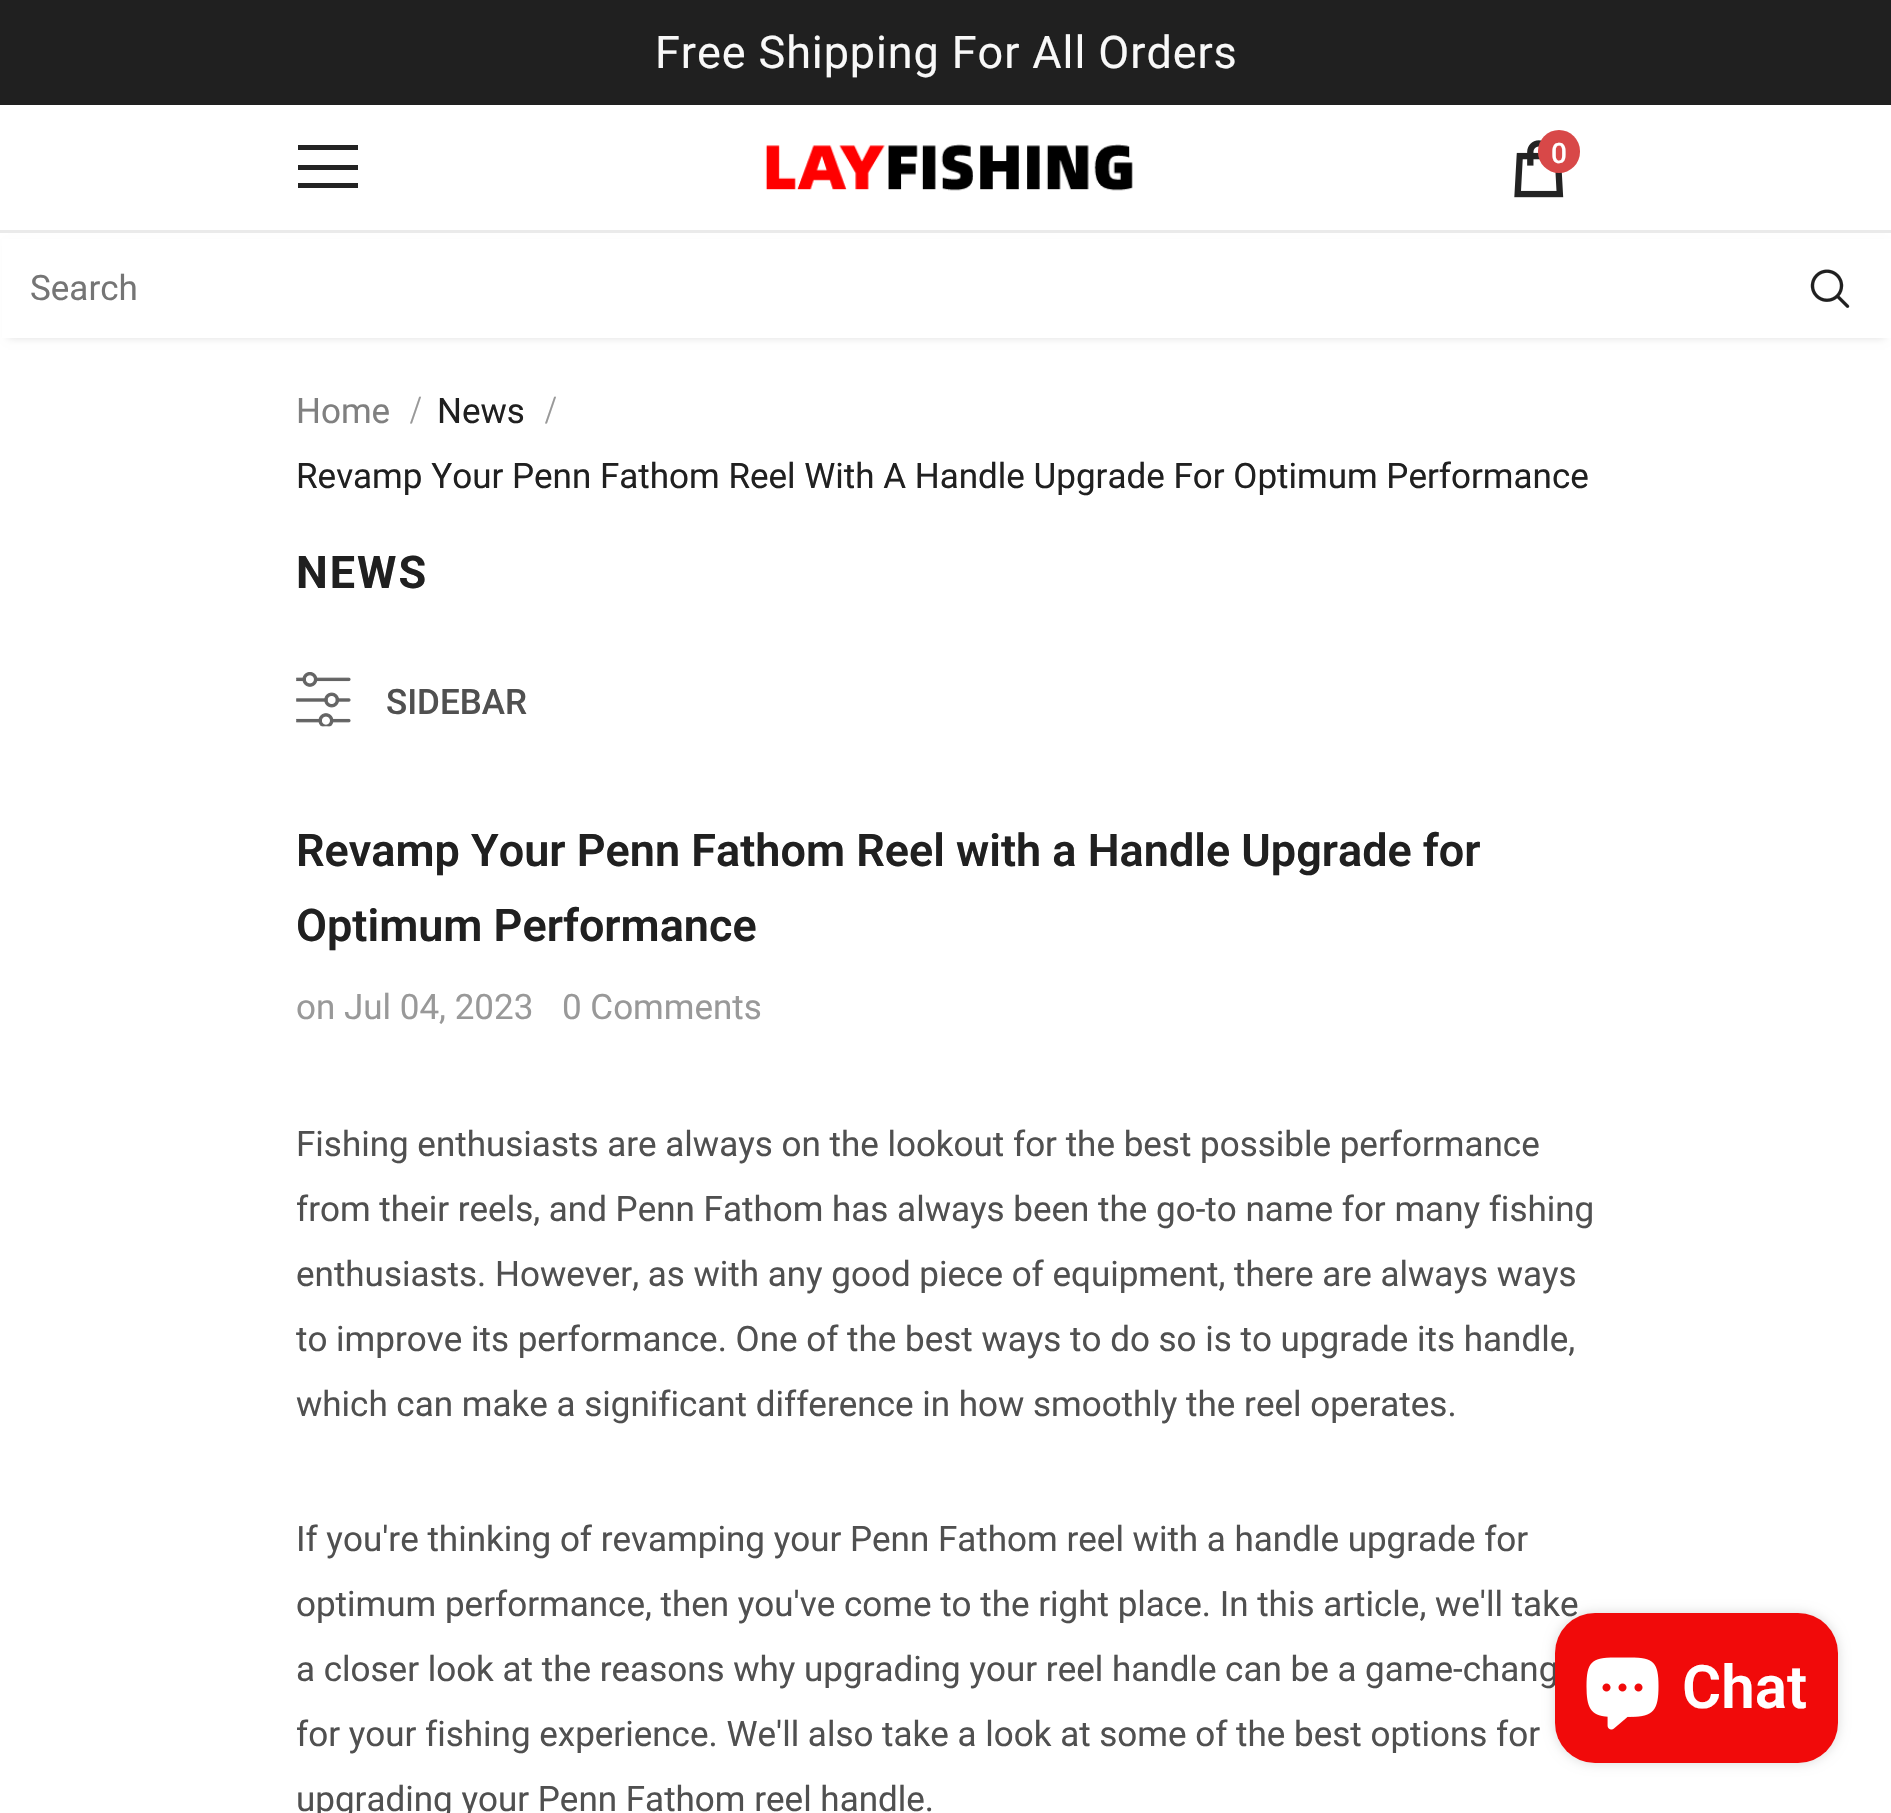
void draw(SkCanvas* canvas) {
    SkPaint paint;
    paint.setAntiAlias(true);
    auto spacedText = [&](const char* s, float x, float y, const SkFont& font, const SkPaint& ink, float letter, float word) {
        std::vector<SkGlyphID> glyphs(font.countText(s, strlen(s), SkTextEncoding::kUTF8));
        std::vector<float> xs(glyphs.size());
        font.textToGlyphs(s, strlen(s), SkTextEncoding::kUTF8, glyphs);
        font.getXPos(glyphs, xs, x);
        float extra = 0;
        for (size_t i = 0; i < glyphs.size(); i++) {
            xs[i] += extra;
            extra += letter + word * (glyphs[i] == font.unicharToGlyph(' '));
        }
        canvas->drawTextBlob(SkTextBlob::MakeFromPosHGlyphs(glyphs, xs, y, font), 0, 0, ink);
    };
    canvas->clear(0xFFFFFFFF);
    paint.setColor(0xFF202020);
    canvas->drawRect(SkRect::MakeXYWH(0, 0, 1891, 105), paint);
    SkFont font1(fontMgr->matchFamilyStyle("Roboto", SkFontStyle::Normal()), 45);
    font1.setSubpixel(true);
    paint.setColor(0xFFF8F8F8);
    spacedText("Free Shipping For All Orders", 655, 68, font1, paint, 0.9f, 0);
    canvas->drawImageRect(SkImages::DeferredFromEncodedData(SkData::MakeFromFileName("img1.png")), SkRect::MakeXYWH(1514, 140, 50, 58), SkSamplingOptions());
    paint.setColor(0xFFD84848);
    canvas->drawRoundRect(SkRect::MakeXYWH(1538, 130, 42, 43), 21, 21, paint);
    SkFont font2(fontMgr->matchFamilyStyle("Roboto", SkFontStyle(500, SkFontStyle::kNormal_Width, SkFontStyle::kUpright_Slant)), 28);
    font2.setSubpixel(true);
    paint.setColor(0xFFFFFFFF);
    canvas->drawString("0", 1551, 163, font2, paint);
    paint.setColor(0x1F000000);
    paint.setMaskFilter(SkMaskFilter::MakeBlur(kNormal_SkBlurStyle, 4));
    canvas->drawRect(SkRect::MakeXYWH(8, 245, 1877, 93), paint);
    paint.setMaskFilter(nullptr);
    paint.setColor(0xFFFFFFFF);
    canvas->drawRect(SkRect::MakeXYWH(2, 239, 1889, 99), paint);
    paint.setColor(0xFFEAEAEA);
    canvas->drawRect(SkRect::MakeXYWH(0, 230, 1891, 3), paint);
    SkFont font3(fontMgr->matchFamilyStyle("Roboto", SkFontStyle::Normal()), 35);
    font3.setSubpixel(true);
    paint.setColor(0xFF757575);
    canvas->drawString("Search", 30, 300, font3, paint);
    canvas->drawImageRect(SkImages::DeferredFromEncodedData(SkData::MakeFromFileName("img2.png")), SkRect::MakeXYWH(1810, 269, 40, 39), SkSamplingOptions());
    paint.setColor(0xFF232323);
    canvas->drawRect(SkRect::MakeXYWH(298, 145, 60, 5), paint);
    canvas->drawRect(SkRect::MakeXYWH(298, 165, 60, 5), paint);
    canvas->drawRect(SkRect::MakeXYWH(298, 183, 60, 5), paint);
    canvas->drawImageRect(SkImages::DeferredFromEncodedData(SkData::MakeFromFileName("img3.png")), SkRect::MakeXYWH(765, 144, 368, 47), SkSamplingOptions());
    paint.setColor(0xFF808080);
    canvas->drawString("Home", 296, 423, font3, paint);
    SkFont font4(fontMgr->matchFamilyStyle("Liberation Serif", SkFontStyle::Normal()), 40);
    font4.setSubpixel(true);
    paint.setColor(0xFF999999);
    canvas->drawString("/", 410, 423, font4, paint);
    paint.setColor(0xFF202020);
    canvas->drawString("News", 437, 423, font3, paint);
    paint.setColor(0xFF999999);
    canvas->drawString("/", 545, 423, font4, paint);
    paint.setColor(0xFF202020);
    canvas->drawString("Revamp Your Penn Fathom Reel With A Handle Upgrade For Optimum Performance", 296, 488, font3, paint);
    SkFont font5(fontMgr->matchFamilyStyle("Roboto", SkFontStyle::Bold()), 45);
    font5.setSubpixel(true);
    spacedText("NEWS", 296, 588, font5, paint, 2, 0);
    canvas->drawImageRect(SkImages::DeferredFromEncodedData(SkData::MakeFromFileName("img4.png")), SkRect::MakeXYWH(296, 672, 55, 55), SkSamplingOptions());
    SkFont font6(fontMgr->matchFamilyStyle("Roboto", SkFontStyle(500, SkFontStyle::kNormal_Width, SkFontStyle::kUpright_Slant)), 35);
    font6.setSubpixel(true);
    paint.setColor(0xFF505050);
    canvas->drawString("SIDEBAR", 386, 714, font6, paint);
    SkFont font7(fontMgr->matchFamilyStyle("Roboto", SkFontStyle(600, SkFontStyle::kNormal_Width, SkFontStyle::kUpright_Slant)), 45);
    font7.setSubpixel(true);
    paint.setColor(0xFF202020);
    canvas->drawString("Revamp Your Penn Fathom Reel with a Handle Upgrade for", 296, 866, font7, paint);
    canvas->drawString("Optimum Performance", 296, 941, font7, paint);
    paint.setColor(0xFF999999);
    canvas->drawString("on Jul 04, 2023", 296, 1019, font3, paint);
    canvas->drawString("0 Comments", 562, 1019, font3, paint);
    paint.setColor(0xFF505050);
    canvas->drawString("Fishing enthusiasts are always on the lookout for the best possible performance", 296, 1156, font3, paint);
    canvas->drawString("from their reels, and Penn Fathom has always been the go-to name for many fishing", 296, 1221, font3, paint);
    canvas->drawString("enthusiasts. However, as with any good piece of equipment, there are always ways", 296, 1286, font3, paint);
    canvas->drawString("to improve its performance. One of the best ways to do so is to upgrade its handle,", 296, 1351, font3, paint);
    canvas->drawString("which can make a significant difference in how smoothly the reel operates.", 296, 1416, font3, paint);
    canvas->drawString("If you're thinking of revamping your Penn Fathom reel with a handle upgrade for", 296, 1551, font3, paint);
    canvas->drawString("optimum performance, then you've come to the right place. In this article, we'll take", 296, 1616, font3, paint);
    canvas->drawString("a closer look at the reasons why upgrading your reel handle can be a game-chang", 296, 1681, font3, paint);
    canvas->drawString("for your fishing experience. We'll also take a look at some of the best options for", 296, 1746, font3, paint);
    canvas->drawString("upgrading your Penn Fathom reel handle.", 296, 1811, font3, paint);
    paint.setColor(0x26000000);
    paint.setMaskFilter(SkMaskFilter::MakeBlur(kNormal_SkBlurStyle, 6));
    canvas->drawRoundRect(SkRect::MakeXYWH(1555, 1613, 283, 150), 40, 40, paint);
    paint.setMaskFilter(nullptr);
    paint.setColor(0xFFF10A0A);
    canvas->drawRoundRect(SkRect::MakeXYWH(1555, 1613, 283, 150), 40, 40, paint);
    canvas->drawImageRect(SkImages::DeferredFromEncodedData(SkData::MakeFromFileName("img5.png")), SkRect::MakeXYWH(1586, 1657, 73, 73), SkSamplingOptions());
    SkFont font8(fontMgr->matchFamilyStyle("Roboto", SkFontStyle(600, SkFontStyle::kNormal_Width, SkFontStyle::kUpright_Slant)), 60);
    font8.setSubpixel(true);
    paint.setColor(0xFFFFFFFF);
    canvas->drawString("Chat", 1682, 1708, font8, paint);
}
